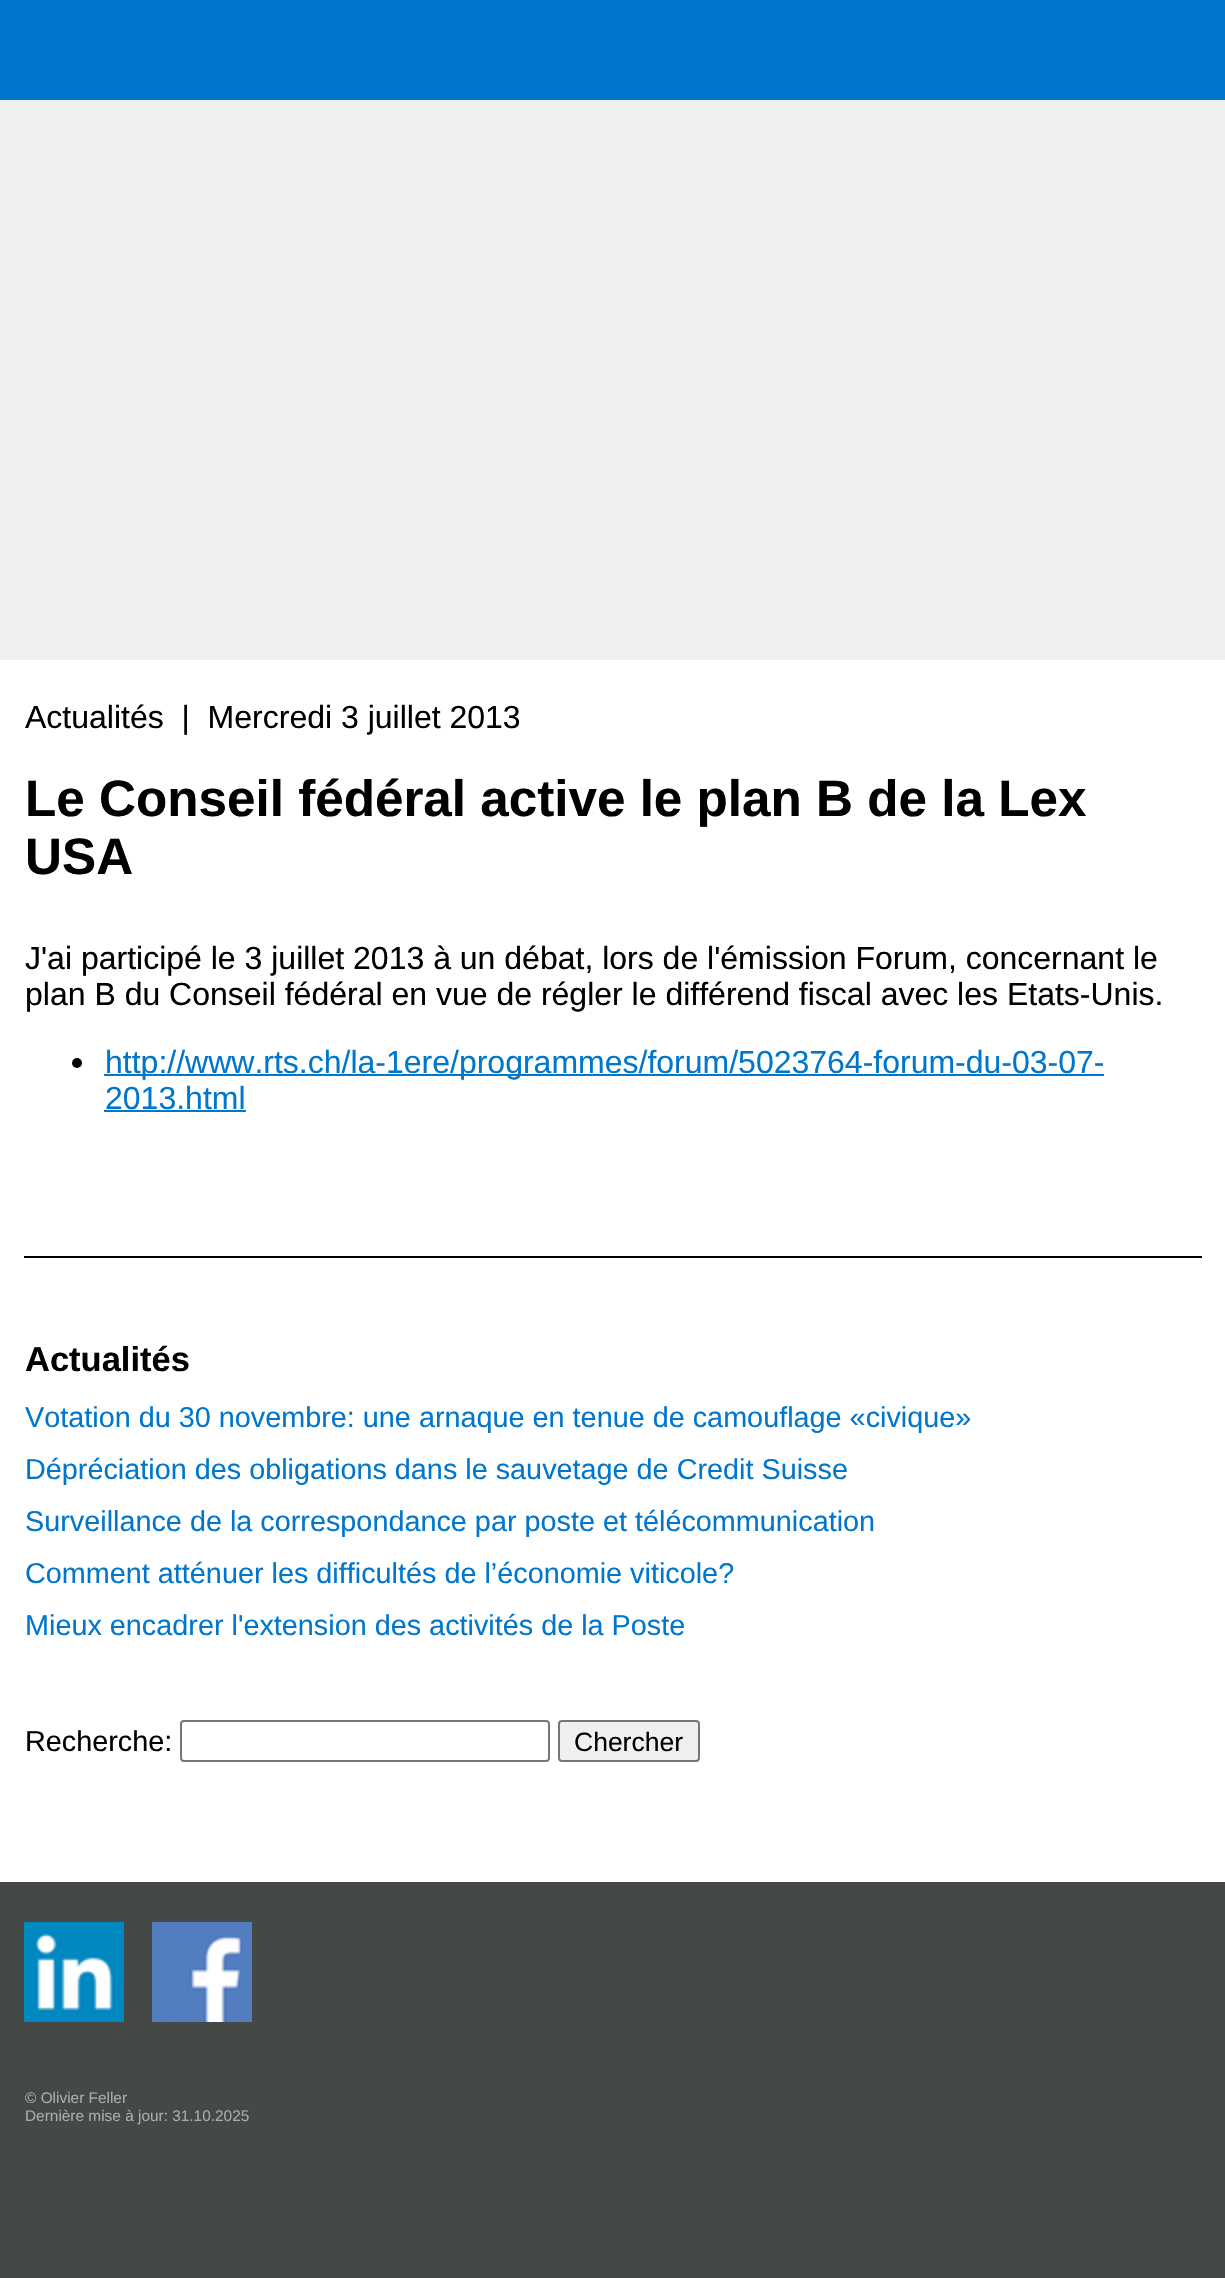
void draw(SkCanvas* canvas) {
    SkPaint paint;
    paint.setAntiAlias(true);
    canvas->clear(0xFF454945);
    paint.setColor(0xFF0077CC);
    canvas->drawRect(SkRect::MakeXYWH(0, 0, 1225, 100), paint);
    paint.setColor(0xFFF0F0F0);
    canvas->drawRect(SkRect::MakeXYWH(0, 100, 1225, 560), paint);
    paint.setColor(0xFFFFFFFF);
    canvas->drawRect(SkRect::MakeXYWH(0, 660, 1225, 1222), paint);
    SkFont font1(fontMgr->matchFamilyStyle("Liberation Sans", SkFontStyle::Normal()), 32);
    font1.setSubpixel(true);
    paint.setColor(0xFF000000);
    canvas->drawString("Actualités  |  Mercredi 3 juillet 2013", 25, 728, font1, paint);
    SkFont font2(fontMgr->matchFamilyStyle("Liberation Sans", SkFontStyle::Bold()), 51.2f);
    font2.setSubpixel(true);
    canvas->drawString("Le Conseil fédéral active le plan B de la Lex", 25, 816, font2, paint);
    canvas->drawString("USA", 25, 874, font2, paint);
    canvas->drawString("J'ai participé le 3 juillet 2013 à un débat, lors de l'émission Forum, concernant le", 25, 969, font1, paint);
    canvas->drawString("plan B du Conseil fédéral en vue de régler le différend fiscal avec les Etats-Unis.", 25, 1005, font1, paint);
    canvas->drawCircle(77, 1063, 5, paint);
    paint.setColor(0xFF0077CC);
    canvas->drawRect(SkRect::MakeXYWH(104, 1074, 1000, 2), paint);
    canvas->drawString("http://www.rts.ch/la-1ere/programmes/forum/5023764-forum-du-03-07-", 105, 1073, font1, paint);
    canvas->drawString("2013.html", 105, 1109, font1, paint);
    canvas->drawRect(SkRect::MakeXYWH(104, 1110, 142, 2), paint);
    paint.setColor(0xFF000000);
    canvas->drawRect(SkRect::MakeXYWH(24, 1256, 1178, 2), paint);
    SkFont font3(fontMgr->matchFamilyStyle("Liberation Sans", SkFontStyle::Bold()), 34.5f);
    font3.setSubpixel(true);
    canvas->drawString("Actualités", 25, 1371, font3, paint);
    SkFont font4(fontMgr->matchFamilyStyle("Liberation Sans", SkFontStyle::Normal()), 28.8f);
    font4.setSubpixel(true);
    paint.setColor(0xFF0077CC);
    canvas->drawString("Votation du 30 novembre: une arnaque en tenue de camouflage «civique»", 25, 1427, font4, paint);
    canvas->drawString("Dépréciation des obligations dans le sauvetage de Credit Suisse", 25, 1479, font4, paint);
    canvas->drawString("Surveillance de la correspondance par poste et télécommunication", 25, 1531, font4, paint);
    canvas->drawString("Comment atténuer les difficultés de l’économie viticole?", 25, 1583, font4, paint);
    canvas->drawString("Mieux encadrer l'extension des activités de la Poste", 25, 1635, font4, paint);
    paint.setColor(0xFF000000);
    canvas->drawString("Recherche:", 25, 1751, font4, paint);
    paint.setStyle(SkPaint::kStroke_Style);
    paint.setStrokeWidth(2);
    paint.setColor(0xFF767676);
    canvas->drawRoundRect(SkRect::MakeXYWH(181, 1721, 368, 40), 3, 3, paint);
    paint.setStyle(SkPaint::kFill_Style);
    paint.setColor(0xFFEFEFEF);
    canvas->drawRoundRect(SkRect::MakeXYWH(559, 1721, 140, 40), 3, 3, paint);
    paint.setStyle(SkPaint::kStroke_Style);
    paint.setColor(0xFF767676);
    canvas->drawRoundRect(SkRect::MakeXYWH(559, 1721, 140, 40), 3, 3, paint);
    SkFont font5(fontMgr->matchFamilyStyle("Liberation Sans", SkFontStyle::Normal()), 26.5f);
    font5.setSubpixel(true);
    paint.setStyle(SkPaint::kFill_Style);
    paint.setColor(0xFF000000);
    canvas->drawString("Chercher", 574, 1751, font5, paint);
    canvas->drawImageRect(SkImages::DeferredFromEncodedData(SkData::MakeFromFileName("img1.png")), SkRect::MakeXYWH(24, 1922, 100, 100), SkSamplingOptions());
    canvas->drawImageRect(SkImages::DeferredFromEncodedData(SkData::MakeFromFileName("img2.png")), SkRect::MakeXYWH(152, 1922, 100, 100), SkSamplingOptions());
    SkFont font6(fontMgr->matchFamilyStyle("Liberation Sans", SkFontStyle::Normal()), 15.4f);
    font6.setSubpixel(true);
    paint.setColor(0xFFAAAAAA);
    canvas->drawString("© Olivier Feller", 25, 2103, font6, paint);
    canvas->drawString("Dernière mise à jour: 31.10.2025", 25, 2121, font6, paint);
}
